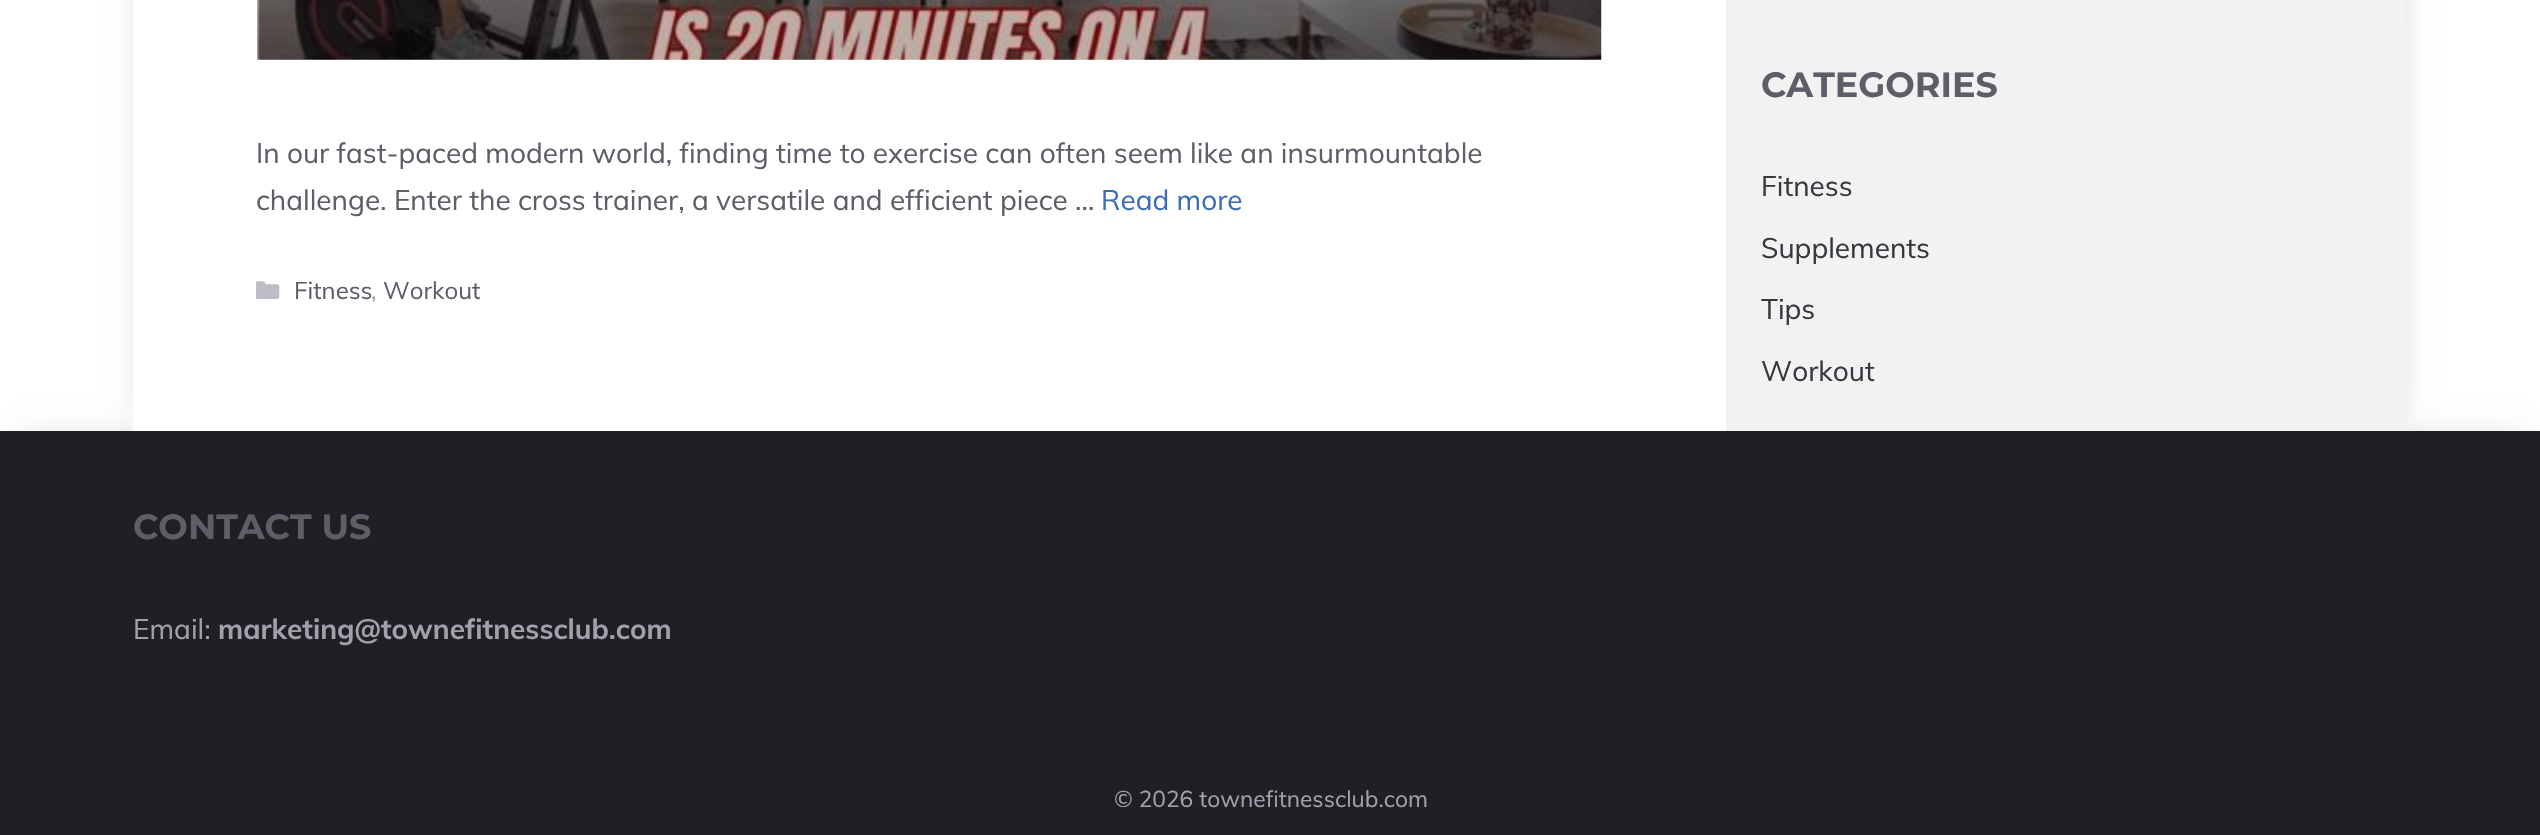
void draw(SkCanvas* canvas) {
    SkPaint paint;
    paint.setAntiAlias(true);
    canvas->clear(0xFFFFFFFF);
    paint.setColor(0x4D000000);
    paint.setMaskFilter(SkMaskFilter::MakeBlur(kNormal_SkBlurStyle, 17.5f));
    canvas->drawRect(SkRect::MakeXYWH(151, -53, 2240, 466), paint);
    paint.setMaskFilter(nullptr);
    paint.setMaskFilter(SkMaskFilter::MakeBlur(kNormal_SkBlurStyle, 17.5f));
    canvas->drawRect(SkRect::MakeXYWH(18, 448, 2506, 257), paint);
    paint.setMaskFilter(nullptr);
    paint.setColor(0xFFFFFFFF);
    canvas->drawRect(SkRect::MakeXYWH(133, 0, 1593, 431), paint);
    canvas->drawImageRect(SkImages::DeferredFromEncodedData(SkData::MakeFromFileName("img1.png")), SkRect::MakeXYWH(257, 0, 1345, 60), SkSamplingOptions());
    SkFont font1(fontMgr->matchFamilyStyle("Muli", SkFontStyle::Normal()), 28);
    font1.setSubpixel(true);
    paint.setColor(0xFF5E5E69);
    canvas->drawString("In our fast-paced modern world, finding time to exercise can often seem like an insurmountable", 256, 163, font1, paint);
    canvas->drawString("challenge. Enter the cross trainer, a versatile and efficient piece …", 256, 210, font1, paint);
    paint.setColor(0xFF396EB3);
    canvas->drawString("Read more", 1101, 210, font1, paint);
    canvas->drawImageRect(SkImages::DeferredFromEncodedData(SkData::MakeFromFileName("img2.png")), SkRect::MakeXYWH(256, 281, 24, 19), SkSamplingOptions());
    SkFont font2(fontMgr->matchFamilyStyle("Muli", SkFontStyle::Normal()), 24);
    font2.setSubpixel(true);
    paint.setColor(0xFF5E5E69);
    canvas->drawString("Fitness", 294, 299, font2, paint);
    paint.setColor(0xFFA0A1AD);
    canvas->drawString(",", 371, 299, font2, paint);
    paint.setColor(0xFF5E5E69);
    canvas->drawString("Workout", 383, 299, font2, paint);
    paint.setColor(0xFFF2F2F2);
    canvas->drawRect(SkRect::MakeXYWH(1726, 0, 679, 23), paint);
    canvas->drawRect(SkRect::MakeXYWH(1726, 23, 682, 408), paint);
    SkFont font3(fontMgr->matchFamilyStyle("Montserrat", SkFontStyle::Bold()), 35);
    font3.setSubpixel(true);
    paint.setColor(0xFF5E5E69);
    canvas->drawString("CATEGORIES", 1761, 97, font3, paint);
    paint.setColor(0xFF343A40);
    canvas->drawString("Fitness", 1761, 196, font1, paint);
    canvas->drawString("Supplements", 1761, 258, font1, paint);
    canvas->drawString("Tips", 1761, 319, font1, paint);
    canvas->drawString("Workout", 1761, 381, font1, paint);
    paint.setColor(0xFF1F2024);
    canvas->drawRect(SkRect::MakeXYWH(0, 431, 2540, 404), paint);
    paint.setColor(0xFF5E5E69);
    canvas->drawString("CONTACT US", 133, 539, font3, paint);
    paint.setColor(0xFFA0A1AD);
    canvas->drawString("Email:", 133, 639, font1, paint);
    SkFont font4(fontMgr->matchFamilyStyle("Muli", SkFontStyle::Bold()), 28);
    font4.setSubpixel(true);
    canvas->drawString("marketing@townefitnessclub.com", 218, 639, font4, paint);
    SkFont font5(fontMgr->matchFamilyStyle("Muli", SkFontStyle::Normal()), 22.75f);
    font5.setSubpixel(true);
    canvas->drawString("© 2026 townefitnessclub.com", 1114, 807, font5, paint);
}
